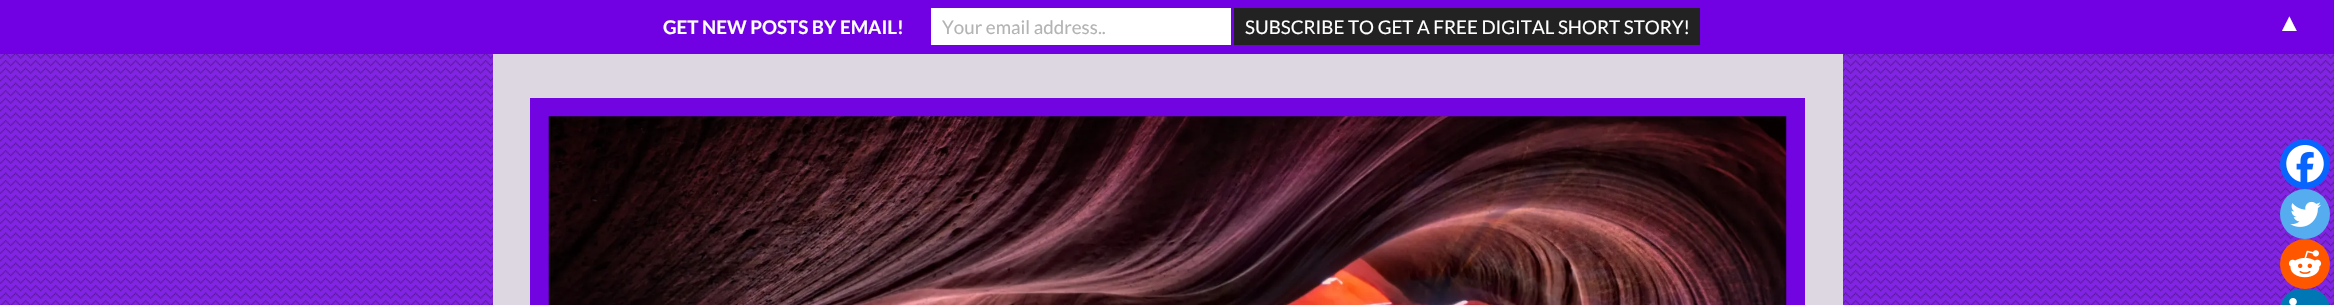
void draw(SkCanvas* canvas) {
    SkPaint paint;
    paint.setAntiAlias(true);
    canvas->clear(0xFF8224E3);
    canvas->drawImageRect(SkImages::DeferredFromEncodedData(SkData::MakeFromFileName("img1.png")), SkRect::MakeXYWH(0, 54, 2334, 251), SkSamplingOptions());
    paint.setColor(0xFF7100E2);
    canvas->drawRect(SkRect::MakeXYWH(0, 0, 2334, 54), paint);
    SkFont font1(fontMgr->matchFamilyStyle("Lato", SkFontStyle::Bold()), 18.75f);
    font1.setSubpixel(true);
    paint.setColor(0xFFFFFFFF);
    canvas->drawString("GET NEW POSTS BY EMAIL!", 663, 34, font1, paint);
    canvas->drawRect(SkRect::MakeXYWH(931, 8, 300, 37), paint);
    SkFont font2(fontMgr->matchFamilyStyle("Lato", SkFontStyle::Normal()), 18.75f);
    font2.setSubpixel(true);
    paint.setColor(0xFFB3B3B3);
    canvas->drawString("Your email address..", 942, 34, font2, paint);
    paint.setColor(0xFF222222);
    canvas->drawRect(SkRect::MakeXYWH(1234, 8, 466, 37), paint);
    paint.setColor(0xFFFFFFFF);
    canvas->drawString("SUBSCRIBE TO GET A FREE DIGITAL SHORT STORY!", 1245, 34, font2, paint);
    SkFont font3(fontMgr->matchFamilyStyle("Liberation Sans", SkFontStyle::Normal()), 25);
    font3.setSubpixel(true);
    canvas->drawString("▲", 2277, 31, font3, paint);
    paint.setColor(0xFFDDD7E2);
    canvas->drawRect(SkRect::MakeXYWH(493, 54, 1350, 251), paint);
    paint.setColor(0xFF7304E2);
    canvas->drawRect(SkRect::MakeXYWH(530, 98, 1275, 207), paint);
    canvas->drawImageRect(SkImages::DeferredFromEncodedData(SkData::MakeFromFileName("img2.png")), SkRect::MakeXYWH(548, 116, 1239, 189), SkSamplingOptions());
    paint.setColor(0xFF0765FE);
    canvas->drawCircle(2305, 164, 25, paint);
    canvas->drawImageRect(SkImages::DeferredFromEncodedData(SkData::MakeFromFileName("img3.png")), SkRect::MakeXYWH(2286, 145, 38, 38), SkSamplingOptions());
    paint.setColor(0xFF55ACEE);
    canvas->drawCircle(2305, 214, 25, paint);
    canvas->drawImageRect(SkImages::DeferredFromEncodedData(SkData::MakeFromFileName("img4.png")), SkRect::MakeXYWH(2290, 201, 31, 26), SkSamplingOptions());
    paint.setColor(0xFFFF5700);
    canvas->drawCircle(2305, 264, 25, paint);
    canvas->drawImageRect(SkImages::DeferredFromEncodedData(SkData::MakeFromFileName("img5.png")), SkRect::MakeXYWH(2288, 250, 34, 28), SkSamplingOptions());
    paint.setColor(0xFF0077B5);
    canvas->drawRoundRect(SkRect::MakeXYWH(2280, 289, 50, 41), 25, 25, paint);
    canvas->drawImageRect(SkImages::DeferredFromEncodedData(SkData::MakeFromFileName("img6.png")), SkRect::MakeXYWH(2289, 298, 8, 7), SkSamplingOptions());
}
